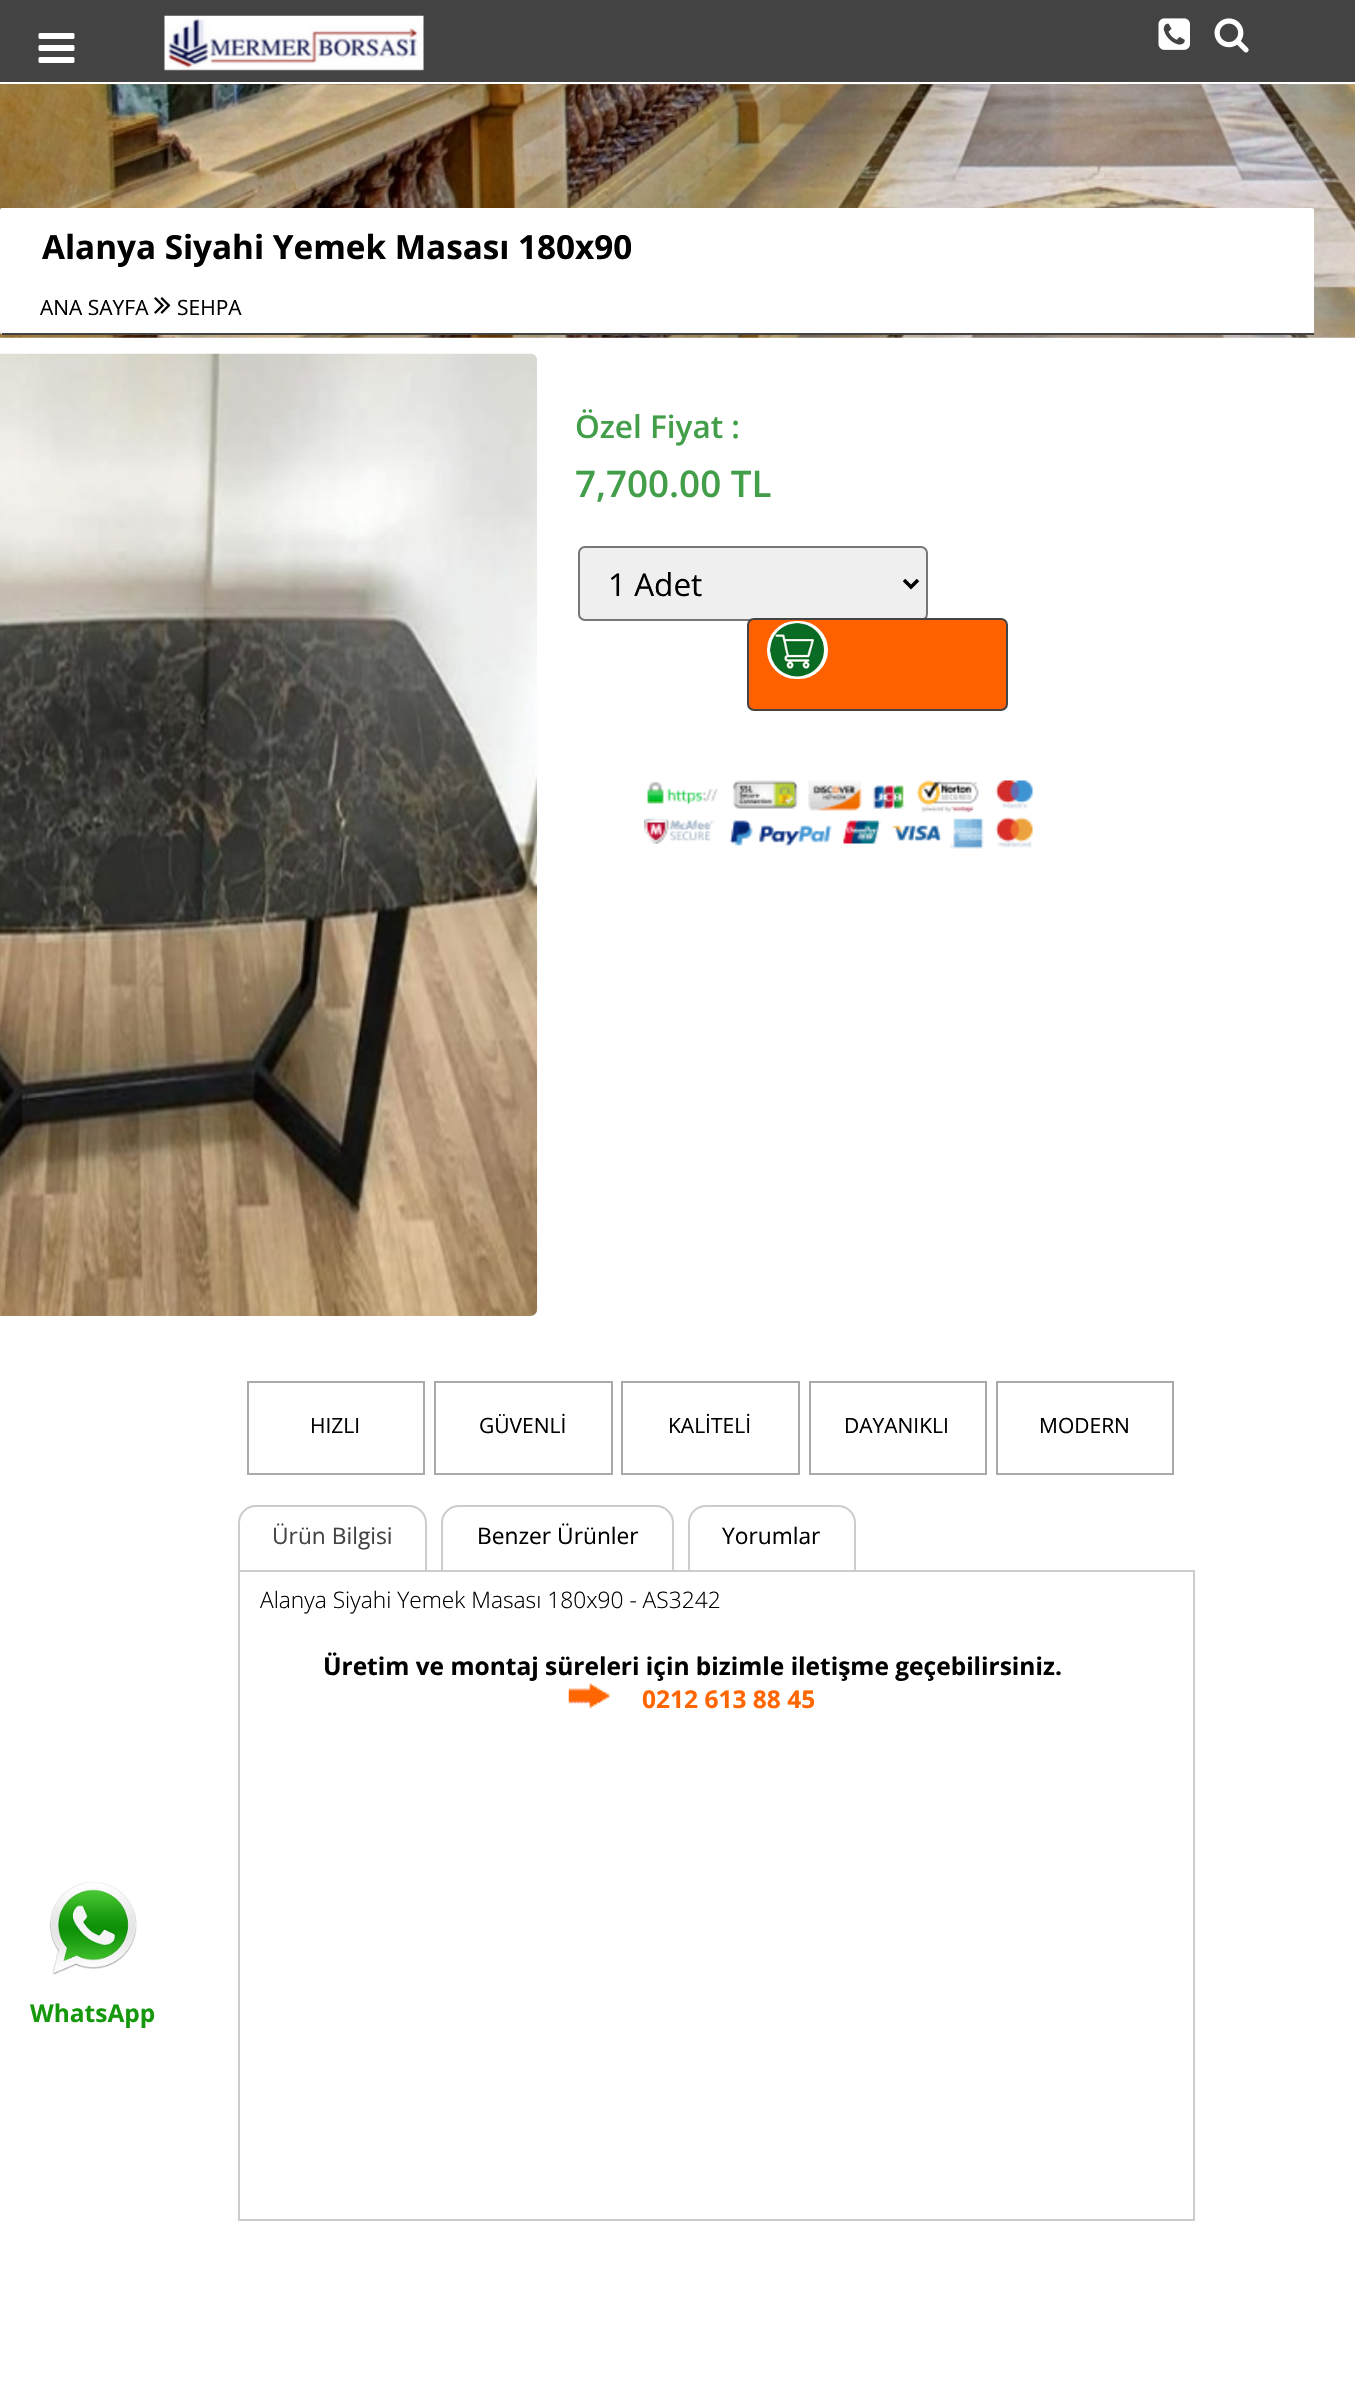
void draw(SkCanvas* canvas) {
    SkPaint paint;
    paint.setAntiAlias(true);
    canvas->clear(0xFFFFFFFF);
    paint.setColor(0xFF434343);
    canvas->drawRect(SkRect::MakeXYWH(0, 0, 1355, 82), paint);
    canvas->drawImageRect(SkImages::DeferredFromEncodedData(SkData::MakeFromFileName("img1.png")), SkRect::MakeXYWH(38, 33, 37, 30), SkSamplingOptions());
    canvas->drawImageRect(SkImages::DeferredFromEncodedData(SkData::MakeFromFileName("img2.png")), SkRect::MakeXYWH(164, 15, 260, 56), SkSamplingOptions());
    canvas->drawImageRect(SkImages::DeferredFromEncodedData(SkData::MakeFromFileName("img3.png")), SkRect::MakeXYWH(1158, 18, 32, 32), SkSamplingOptions());
    canvas->drawImageRect(SkImages::DeferredFromEncodedData(SkData::MakeFromFileName("img4.png")), SkRect::MakeXYWH(1214, 18, 35, 35), SkSamplingOptions());
    canvas->drawImageRect(SkImages::DeferredFromEncodedData(SkData::MakeFromFileName("img5.png")), SkRect::MakeXYWH(0, 84, 1355, 254), SkSamplingOptions());
    paint.setColor(0xFFFFFFFF);
    canvas->drawRoundRect(SkRect::MakeXYWH(0, 208, 1314, 126), 2, 2, paint);
    paint.setColor(0xFF434343);
    canvas->drawRect(SkRect::MakeXYWH(2, 333, 1312, 2), paint);
    SkFont font1(fontMgr->matchFamilyStyle("Open Sans", SkFontStyle::Bold()), 33.25f);
    font1.setSubpixel(true);
    paint.setColor(0xFF000000);
    canvas->drawString("Alanya Siyahi Yemek Masası 180x90", 42, 259, font1, paint);
    SkFont font2(fontMgr->matchFamilyStyle("Open Sans", SkFontStyle::Normal()), 21);
    font2.setSubpixel(true);
    canvas->drawString("ANA SAYFA", 40, 315, font2, paint);
    canvas->drawImageRect(SkImages::DeferredFromEncodedData(SkData::MakeFromFileName("img6.png")), SkRect::MakeXYWH(154, 297, 17, 17), SkSamplingOptions());
    canvas->drawString("SEHPA", 177, 315, font2, paint);
    canvas->drawImageRect(SkImages::DeferredFromEncodedData(SkData::MakeFromFileName("img7.png")), SkRect::MakeXYWH(0, 353, 538, 963), SkSamplingOptions());
    SkFont font3(fontMgr->matchFamilyStyle("Open Sans", SkFontStyle(600, SkFontStyle::kNormal_Width, SkFontStyle::kUpright_Slant)), 31.5f);
    font3.setSubpixel(true);
    paint.setColor(0xFF439E4A);
    canvas->drawString("Özel Fiyat :", 575, 438, font3, paint);
    SkFont font4(fontMgr->matchFamilyStyle("Open Sans", SkFontStyle(600, SkFontStyle::kNormal_Width, SkFontStyle::kUpright_Slant)), 36.75f);
    font4.setSubpixel(true);
    canvas->drawString("7,700.00 TL", 575, 497, font4, paint);
    paint.setColor(0xFFEFEFEF);
    canvas->drawRoundRect(SkRect::MakeXYWH(579, 547, 348, 73), 6, 6, paint);
    paint.setStyle(SkPaint::kStroke_Style);
    paint.setStrokeWidth(2);
    paint.setColor(0xFF767676);
    canvas->drawRoundRect(SkRect::MakeXYWH(579, 547, 348, 73), 6, 6, paint);
    paint.setStrokeWidth(3.5f);
    paint.setColor(0xFF000000);
    canvas->drawPath(SkPathBuilder().moveTo(904, 580).lineTo(911, 587).lineTo(918, 580).detach(), paint);
    SkFont font5(fontMgr->matchFamilyStyle("Open Sans", SkFontStyle::Normal()), 31.5f);
    font5.setSubpixel(true);
    paint.setStyle(SkPaint::kFill_Style);
    canvas->drawString("1 Adet", 608, 596, font5, paint);
    paint.setColor(0xFFFF6000);
    canvas->drawRoundRect(SkRect::MakeXYWH(748, 619, 259, 91), 6, 6, paint);
    paint.setStyle(SkPaint::kStroke_Style);
    paint.setStrokeWidth(2);
    paint.setColor(0xFF434343);
    canvas->drawRoundRect(SkRect::MakeXYWH(748, 619, 259, 91), 6, 6, paint);
    paint.setStyle(SkPaint::kFill_Style);
    paint.setColor(0xFFFFFFFF);
    canvas->drawRoundRect(SkRect::MakeXYWH(768, 622, 59, 56), 28, 28, paint);
    paint.setStyle(SkPaint::kStroke_Style);
    canvas->drawRoundRect(SkRect::MakeXYWH(768, 622, 59, 56), 28, 28, paint);
    canvas->drawImageRect(SkImages::DeferredFromEncodedData(SkData::MakeFromFileName("img8.png")), SkRect::MakeXYWH(770, 623, 55, 54), SkSamplingOptions());
    canvas->drawImageRect(SkImages::DeferredFromEncodedData(SkData::MakeFromFileName("img9.png")), SkRect::MakeXYWH(644, 780, 389, 69), SkSamplingOptions());
    paint.setColor(0xFFA9A9A9);
    canvas->drawRect(SkRect::MakeXYWH(248, 1382, 176, 92), paint);
    paint.setStyle(SkPaint::kFill_Style);
    paint.setColor(0xFF000000);
    canvas->drawString("HIZLI", 310, 1433, font2, paint);
    paint.setStyle(SkPaint::kStroke_Style);
    paint.setColor(0xFFA9A9A9);
    canvas->drawRect(SkRect::MakeXYWH(435, 1382, 177, 92), paint);
    paint.setStyle(SkPaint::kFill_Style);
    paint.setColor(0xFF000000);
    canvas->drawString("GÜVENLİ", 479, 1433, font2, paint);
    paint.setStyle(SkPaint::kStroke_Style);
    paint.setColor(0xFFA9A9A9);
    canvas->drawRect(SkRect::MakeXYWH(622, 1382, 177, 92), paint);
    paint.setStyle(SkPaint::kFill_Style);
    paint.setColor(0xFF000000);
    canvas->drawString("KALİTELİ", 668, 1433, font2, paint);
    paint.setStyle(SkPaint::kStroke_Style);
    paint.setColor(0xFFA9A9A9);
    canvas->drawRect(SkRect::MakeXYWH(810, 1382, 176, 92), paint);
    paint.setStyle(SkPaint::kFill_Style);
    paint.setColor(0xFF000000);
    canvas->drawString("DAYANIKLI", 844, 1433, font2, paint);
    paint.setStyle(SkPaint::kStroke_Style);
    paint.setColor(0xFFA9A9A9);
    canvas->drawRect(SkRect::MakeXYWH(997, 1382, 176, 92), paint);
    paint.setStyle(SkPaint::kFill_Style);
    paint.setColor(0xFF000000);
    canvas->drawString("MODERN", 1039, 1433, font2, paint);
    paint.setStyle(SkPaint::kStroke_Style);
    paint.setColor(0xFFCCCCCC);
    canvas->drawPath(SkPathBuilder().moveTo(256, 1506).lineTo(409, 1506).cubicTo(418.5f, 1506, 426, 1513.5f, 426, 1523).lineTo(426, 1571).lineTo(239, 1571).lineTo(239, 1523).cubicTo(239, 1513.5f, 246.5f, 1506, 256, 1506).close().detach(), paint);
    SkFont font6(fontMgr->matchFamilyStyle("Open Sans", SkFontStyle::Normal()), 22.75f);
    font6.setSubpixel(true);
    paint.setStyle(SkPaint::kFill_Style);
    paint.setColor(0xFF434343);
    canvas->drawString("Ürün Bilgisi", 272, 1544, font6, paint);
    paint.setStyle(SkPaint::kStroke_Style);
    paint.setColor(0xFFCCCCCC);
    canvas->drawPath(SkPathBuilder().moveTo(459, 1506).lineTo(656, 1506).cubicTo(665.5f, 1506, 673, 1513.5f, 673, 1523).lineTo(673, 1571).lineTo(442, 1571).lineTo(442, 1523).cubicTo(442, 1513.5f, 449.5f, 1506, 459, 1506).close().detach(), paint);
    paint.setStyle(SkPaint::kFill_Style);
    paint.setColor(0xFF000000);
    canvas->drawString("Benzer Ürünler", 477, 1544, font6, paint);
    paint.setStyle(SkPaint::kStroke_Style);
    paint.setColor(0xFFCCCCCC);
    canvas->drawPath(SkPathBuilder().moveTo(706, 1506).lineTo(838, 1506).cubicTo(847.5f, 1506, 855, 1513.5f, 855, 1523).lineTo(855, 1571).lineTo(689, 1571).lineTo(689, 1523).cubicTo(689, 1513.5f, 696.5f, 1506, 706, 1506).close().detach(), paint);
    paint.setStyle(SkPaint::kFill_Style);
    paint.setColor(0xFF000000);
    canvas->drawString("Yorumlar", 722, 1544, font6, paint);
    paint.setStyle(SkPaint::kStroke_Style);
    paint.setColor(0xFFCCCCCC);
    canvas->drawRect(SkRect::MakeXYWH(239, 1571, 955, 649), paint);
    SkFont font7(fontMgr->matchFamilyStyle("Open Sans", SkFontStyle(300, SkFontStyle::kNormal_Width, SkFontStyle::kUpright_Slant)), 22.75f);
    font7.setSubpixel(true);
    paint.setStyle(SkPaint::kFill_Style);
    paint.setColor(0xFF000000);
    canvas->drawString("Alanya Siyahi Yemek Masası 180x90 - AS3242", 260, 1608, font7, paint);
    SkFont font8(fontMgr->matchFamilyStyle("Open Sans", SkFontStyle::Bold()), 24.5f);
    font8.setSubpixel(true);
    canvas->drawString("Üretim ve montaj süreleri için bizimle iletişme geçebilirsiniz.", 323, 1675, font8, paint);
    canvas->drawImageRect(SkImages::DeferredFromEncodedData(SkData::MakeFromFileName("img10.png")), SkRect::MakeXYWH(568, 1683, 44, 25), SkSamplingOptions());
    paint.setColor(0xFFFF6600);
    canvas->drawString("0212 613 88 45", 642, 1708, font8, paint);
    canvas->drawImageRect(SkImages::DeferredFromEncodedData(SkData::MakeFromFileName("img11.png")), SkRect::MakeXYWH(49, 1882, 88, 93), SkSamplingOptions());
    paint.setColor(0xFF16980D);
    canvas->drawString("WhatsApp", 30, 2022, font8, paint);
}
